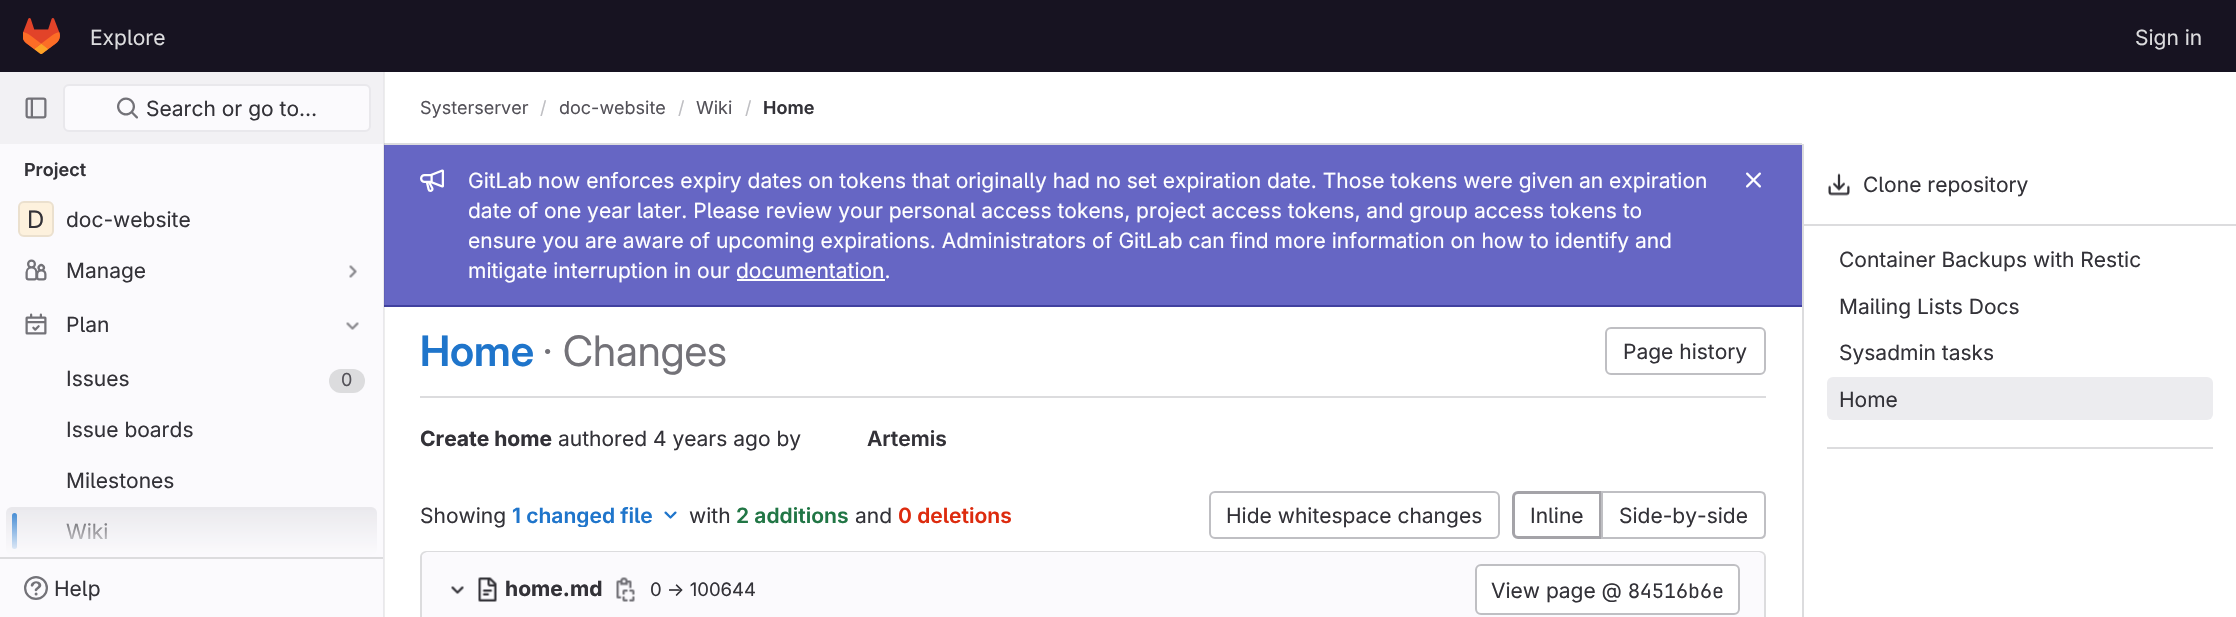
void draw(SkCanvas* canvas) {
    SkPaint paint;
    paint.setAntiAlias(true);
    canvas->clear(0xFFFFFFFF);
    paint.setColor(0xFFEDEDED);
    canvas->drawRect(SkRect::MakeXYWH(384, 72, 1, 545), paint);
    paint.setColor(0xFF171321);
    canvas->drawRect(SkRect::MakeXYWH(0, 0, 2236, 72), paint);
    canvas->drawImageRect(SkImages::DeferredFromEncodedData(SkData::MakeFromFileName("img1.png")), SkRect::MakeXYWH(23, 18, 37, 36), SkSamplingOptions());
    SkFont font1(fontMgr->matchFamilyStyle("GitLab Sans", SkFontStyle::Normal()), 21);
    font1.setSubpixel(true);
    paint.setColor(0xFFDCDCDE);
    canvas->drawString("Explore", 90, 45, font1, paint);
    canvas->drawString("Sign in", 2135, 45, font1, paint);
    paint.setColor(0xFFFBFAFD);
    canvas->drawRect(SkRect::MakeXYWH(0, 144, 383, 473), paint);
    paint.setColor(0xFFE9E8EC);
    canvas->drawRect(SkRect::MakeXYWH(383, 72, 1, 545), paint);
    paint.setColor(0xFFF2F1F4);
    canvas->drawRect(SkRect::MakeXYWH(0, 72, 383, 72), paint);
    canvas->drawImageRect(SkImages::DeferredFromEncodedData(SkData::MakeFromFileName("img2.png")), SkRect::MakeXYWH(25, 97, 22, 22), SkSamplingOptions());
    paint.setColor(0xFFFBFAFD);
    canvas->drawRoundRect(SkRect::MakeXYWH(64, 85, 306, 46), 5, 5, paint);
    paint.setStyle(SkPaint::kStroke_Style);
    paint.setStrokeWidth(2);
    paint.setColor(0xFFE9E8EC);
    canvas->drawRoundRect(SkRect::MakeXYWH(64, 85, 306, 46), 5, 5, paint);
    canvas->drawImageRect(SkImages::DeferredFromEncodedData(SkData::MakeFromFileName("img3.png")), SkRect::MakeXYWH(117, 97, 21, 22), SkSamplingOptions());
    paint.setStyle(SkPaint::kFill_Style);
    paint.setColor(0xFF333238);
    canvas->drawString("Search or go to…", 146, 116, font1, paint);
    paint.setColor(0xFFDCDCDE);
    canvas->drawRect(SkRect::MakeXYWH(0, 557, 383, 2), paint);
    SkFont font2(fontMgr->matchFamilyStyle("GitLab Sans", SkFontStyle(600, SkFontStyle::kNormal_Width, SkFontStyle::kUpright_Slant)), 18);
    font2.setSubpixel(true);
    paint.setColor(0xFF333238);
    canvas->drawString("Project", 24, 176, font2, paint);
    paint.setColor(0xFFFDF1DD);
    canvas->drawRoundRect(SkRect::MakeXYWH(18, 201, 36, 36), 6, 6, paint);
    paint.setStyle(SkPaint::kStroke_Style);
    paint.setColor(0x141F1E24);
    canvas->drawRoundRect(SkRect::MakeXYWH(19, 202, 34, 34), 5, 5, paint);
    SkFont font3(fontMgr->matchFamilyStyle("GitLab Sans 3", SkFontStyle::Normal()), 24);
    font3.setSubpixel(true);
    paint.setStyle(SkPaint::kFill_Style);
    paint.setColor(0xFF333238);
    canvas->drawString("D", 27, 228, font3, paint);
    canvas->drawString("doc-website", 66, 227, font1, paint);
    canvas->drawImageRect(SkImages::DeferredFromEncodedData(SkData::MakeFromFileName("img4.png")), SkRect::MakeXYWH(25, 259, 22, 22), SkSamplingOptions());
    canvas->drawString("Manage", 66, 278, font1, paint);
    canvas->drawImageRect(SkImages::DeferredFromEncodedData(SkData::MakeFromFileName("img5.png")), SkRect::MakeXYWH(349, 265, 8, 13), SkSamplingOptions());
    canvas->drawImageRect(SkImages::DeferredFromEncodedData(SkData::MakeFromFileName("img6.png")), SkRect::MakeXYWH(25, 313, 22, 22), SkSamplingOptions());
    canvas->drawString("Plan", 66, 332, font1, paint);
    canvas->drawImageRect(SkImages::DeferredFromEncodedData(SkData::MakeFromFileName("img7.png")), SkRect::MakeXYWH(346, 322, 13, 8), SkSamplingOptions());
    canvas->drawString("Issues", 66, 386, font1, paint);
    paint.setColor(0xFFDCDCDE);
    canvas->drawRoundRect(SkRect::MakeXYWH(329, 369, 36, 24), 12, 12, paint);
    SkFont font4(fontMgr->matchFamilyStyle("GitLab Sans", SkFontStyle::Normal()), 18);
    font4.setSubpixel(true);
    paint.setColor(0xFF535158);
    canvas->drawString("0", 341, 386, font4, paint);
    paint.setColor(0xFF333238);
    canvas->drawString("Issue boards", 66, 437, font1, paint);
    canvas->drawString("Milestones", 66, 488, font1, paint);
    paint.setColor(0xFFE9E8EC);
    canvas->drawRoundRect(SkRect::MakeXYWH(6, 507, 371, 48), 6, 6, paint);
    paint.setColor(0xFF1F75CB);
    canvas->drawRoundRect(SkRect::MakeXYWH(12, 513, 5, 36), 2.5f, 2.5f, paint);
    paint.setColor(0xFF333238);
    canvas->drawString("Wiki", 66, 539, font1, paint);
    {
        const SkColor colors[] = {0x00FBFAFD, 0xFFFBFAFD};
        const float stops[] = {0, 1};
        const SkPoint ends[] = {{191, 503}, {191, 557}};
        paint.setShader(SkGradientShader::MakeLinear(ends, colors, stops, 2, SkTileMode::kClamp));
        paint.setAlpha(255);
    }
    canvas->drawRect(SkRect::MakeXYWH(6, 510, 371, 45), paint);
    canvas->drawImageRect(SkImages::DeferredFromEncodedData(SkData::MakeFromFileName("img8.png")), SkRect::MakeXYWH(24, 576, 24, 24), SkSamplingOptions());
    paint.setShader(nullptr);
    paint.setColor(0xFF333238);
    canvas->drawString("Help", 54, 596, font1, paint);
    paint.setColor(0xFF6060B7);
    canvas->drawRect(SkRect::MakeXYWH(384, 144, 1, 162), paint);
    paint.setColor(0xFFDCDCDE);
    canvas->drawRect(SkRect::MakeXYWH(384, 143, 1418, 2), paint);
    paint.setColor(0xFFCDCDCF);
    canvas->drawRect(SkRect::MakeXYWH(384, 143, 1, 2), paint);
    paint.setColor(0xFF535158);
    canvas->drawString("Systerserver", 420, 114, font4, paint);
    paint.setColor(0xFFBFBFC3);
    canvas->drawString("/", 540, 114, font4, paint);
    paint.setColor(0xFF535158);
    canvas->drawString("doc-website", 559, 114, font4, paint);
    paint.setColor(0xFFBFBFC3);
    canvas->drawString("/", 678, 114, font4, paint);
    paint.setColor(0xFF535158);
    canvas->drawString("Wiki", 696, 114, font4, paint);
    paint.setColor(0xFFBFBFC3);
    canvas->drawString("/", 745, 114, font4, paint);
    paint.setColor(0xFF333238);
    canvas->drawString("Home", 763, 114, font2, paint);
    paint.setColor(0xFF6666C4);
    canvas->drawRect(SkRect::MakeXYWH(385, 145, 1417, 160), paint);
    paint.setColor(0xFF41419F);
    canvas->drawRect(SkRect::MakeXYWH(384, 305, 1418, 2), paint);
    paint.setColor(0xFF3E3E95);
    canvas->drawRect(SkRect::MakeXYWH(384, 305, 1, 2), paint);
    canvas->drawImageRect(SkImages::DeferredFromEncodedData(SkData::MakeFromFileName("img9.png")), SkRect::MakeXYWH(420, 169, 24, 23), SkSamplingOptions());
    paint.setColor(0xFFFFFFFF);
    canvas->drawString("GitLab now enforces expiry dates on tokens that originally had no set expiration date. Those tokens were given an expiration", 468, 188, font1, paint);
    canvas->drawString("date of one year later. Please review your personal access tokens, project access tokens, and group access tokens to", 468, 218, font1, paint);
    canvas->drawString("ensure you are aware of upcoming expirations. Administrators of GitLab can find more information on how to identify and", 468, 248, font1, paint);
    canvas->drawString("mitigate interruption in our documentation.", 468, 278, font1, paint);
    canvas->drawRect(SkRect::MakeXYWH(737, 279, 148, 2), paint);
    canvas->drawImageRect(SkImages::DeferredFromEncodedData(SkData::MakeFromFileName("img10.png")), SkRect::MakeXYWH(1746, 172, 15, 16), SkSamplingOptions());
    paint.setColor(0xFFDCDCDE);
    canvas->drawRect(SkRect::MakeXYWH(420, 396, 1346, 2), paint);
    SkFont font5(fontMgr->matchFamilyStyle("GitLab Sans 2", SkFontStyle(600, SkFontStyle::kNormal_Width, SkFontStyle::kUpright_Slant)), 42);
    font5.setSubpixel(true);
    paint.setColor(0xFF1F75CB);
    canvas->drawString("Home", 420, 366, font5, paint);
    SkFont font6(fontMgr->matchFamilyStyle("GitLab Sans 2", SkFontStyle::Normal()), 42);
    font6.setSubpixel(true);
    paint.setColor(0xFF737278);
    canvas->drawString("· Changes", 543, 366, font6, paint);
    paint.setStyle(SkPaint::kStroke_Style);
    paint.setColor(0xFFBFBFC3);
    canvas->drawRoundRect(SkRect::MakeXYWH(1606, 328, 159, 46), 5, 5, paint);
    paint.setStyle(SkPaint::kFill_Style);
    paint.setColor(0xFF333238);
    canvas->drawString("Page history", 1623, 359, font1, paint);
    paint.setColor(0xFFDCDCDE);
    canvas->drawRect(SkRect::MakeXYWH(1802, 144, 2, 473), paint);
    canvas->drawRect(SkRect::MakeXYWH(1803, 224, 433, 2), paint);
    canvas->drawImageRect(SkImages::DeferredFromEncodedData(SkData::MakeFromFileName("img11.png")), SkRect::MakeXYWH(1828, 173, 22, 23), SkSamplingOptions());
    paint.setColor(0xFF333238);
    canvas->drawString("Clone repository", 1863, 192, font1, paint);
    paint.setColor(0xFFDCDCDE);
    canvas->drawRect(SkRect::MakeXYWH(1827, 447, 386, 2), paint);
    paint.setColor(0xFF333238);
    canvas->drawString("Container Backups with Restic", 1839, 267, font1, paint);
    canvas->drawString("Mailing Lists Docs", 1839, 314, font1, paint);
    canvas->drawString("Sysadmin tasks", 1839, 360, font1, paint);
    paint.setColor(0xFFECECEF);
    canvas->drawRoundRect(SkRect::MakeXYWH(1827, 377, 386, 43), 6, 6, paint);
    paint.setColor(0xFF333238);
    canvas->drawString("Home", 1839, 407, font1, paint);
    SkFont font7(fontMgr->matchFamilyStyle("GitLab Sans", SkFontStyle::Bold()), 21);
    font7.setSubpixel(true);
    canvas->drawString("Create home", 420, 446, font7, paint);
    canvas->drawString("authored 4 years ago by", 558, 446, font1, paint);
    SkFont font8(fontMgr->matchFamilyStyle("GitLab Sans", SkFontStyle(600, SkFontStyle::kNormal_Width, SkFontStyle::kUpright_Slant)), 21);
    font8.setSubpixel(true);
    canvas->drawString("Artemis", 867, 446, font8, paint);
    canvas->drawString("Showing", 420, 523, font1, paint);
    canvas->save();
    canvas->clipRect(SkRect::MakeXYWH(512, 503, 141, 24));
    paint.setColor(0xFF1F75CB);
    canvas->drawString("1 changed file", 512, 523, font8, paint);
    canvas->restore();
    canvas->drawImageRect(SkImages::DeferredFromEncodedData(SkData::MakeFromFileName("img12.png")), SkRect::MakeXYWH(664, 511, 13, 8), SkSamplingOptions());
    paint.setColor(0xFF333238);
    canvas->drawString("with", 689, 523, font1, paint);
    paint.setColor(0xFF217645);
    canvas->drawString("2 additions", 736, 523, font8, paint);
    paint.setColor(0xFF333238);
    canvas->drawString("and", 855, 523, font1, paint);
    paint.setColor(0xFFDD2B0E);
    canvas->drawString("0 deletions", 898, 523, font8, paint);
    paint.setStyle(SkPaint::kStroke_Style);
    paint.setColor(0xFFBFBFC3);
    canvas->drawRoundRect(SkRect::MakeXYWH(1210, 492, 289, 46), 5, 5, paint);
    paint.setStyle(SkPaint::kFill_Style);
    paint.setColor(0xFF333238);
    canvas->drawString("Hide whitespace changes", 1226, 523, font1, paint);
    paint.setStyle(SkPaint::kStroke_Style);
    paint.setStrokeWidth(3);
    paint.setColor(0xFFA4A3A8);
    canvas->drawPath(SkPathBuilder().moveTo(1518, 492.5f).lineTo(1600.5f, 492.5f).lineTo(1600.5f, 537.5f).lineTo(1518, 537.5f).cubicTo(1515.5f, 537.5f, 1513.5f, 535.5f, 1513.5f, 533).lineTo(1513.5f, 497).cubicTo(1513.5f, 494.5f, 1515.5f, 492.5f, 1518, 492.5f).close().detach(), paint);
    paint.setStyle(SkPaint::kFill_Style);
    paint.setColor(0xFF333238);
    canvas->drawString("Inline", 1530, 523, font1, paint);
    paint.setColor(0xFFFFFFFF);
    canvas->drawPath(SkPathBuilder().moveTo(1602, 492).lineTo(1760, 492).cubicTo(1763, 492, 1765, 494, 1765, 497).lineTo(1765, 533).cubicTo(1765, 536, 1763, 538, 1760, 538).lineTo(1602, 538).close().detach(), paint);
    paint.setStyle(SkPaint::kStroke_Style);
    paint.setStrokeWidth(2);
    paint.setColor(0xFFBFBFC3);
    canvas->drawPath(SkPathBuilder().moveTo(1602, 492).lineTo(1760, 492).cubicTo(1763, 492, 1765, 494, 1765, 497).lineTo(1765, 533).cubicTo(1765, 536, 1763, 538, 1760, 538).lineTo(1602, 538).close().detach(), paint);
    paint.setStyle(SkPaint::kFill_Style);
    paint.setColor(0xFF333238);
    canvas->drawString("Side-by-side", 1619, 523, font1, paint);
    paint.setStyle(SkPaint::kStroke_Style);
    paint.setColor(0xFFDCDCDE);
    canvas->drawRoundRect(SkRect::MakeXYWH(421, 552, 1344, 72), 5, 5, paint);
    paint.setStyle(SkPaint::kFill_Style);
    paint.setColor(0xFFFBFAFD);
    canvas->drawPath(SkPathBuilder().moveTo(428, 552).lineTo(1758, 552).cubicTo(1761.5f, 552, 1764, 554.5f, 1764, 558).lineTo(1764, 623).lineTo(422, 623).lineTo(422, 558).cubicTo(422, 554.5f, 424.5f, 552, 428, 552).close().detach(), paint);
    canvas->drawImageRect(SkImages::DeferredFromEncodedData(SkData::MakeFromFileName("img13.png")), SkRect::MakeXYWH(451, 586, 13, 9), SkSamplingOptions());
    canvas->drawImageRect(SkImages::DeferredFromEncodedData(SkData::MakeFromFileName("img14.png")), SkRect::MakeXYWH(478, 577, 19, 25), SkSamplingOptions());
    paint.setColor(0xFF333238);
    canvas->drawString("home.md", 505, 596, font7, paint);
    canvas->drawImageRect(SkImages::DeferredFromEncodedData(SkData::MakeFromFileName("img15.png")), SkRect::MakeXYWH(616, 577, 19, 25), SkSamplingOptions());
    SkFont font9(fontMgr->matchFamilyStyle("GitLab Sans", SkFontStyle::Normal()), 18.5f);
    font9.setSubpixel(true);
    canvas->drawString("0 → 100644", 650, 596, font9, paint);
    paint.setColor(0xFFFFFFFF);
    canvas->drawRoundRect(SkRect::MakeXYWH(1476, 565, 263, 49), 5, 5, paint);
    paint.setStyle(SkPaint::kStroke_Style);
    paint.setColor(0xFFBFBFC3);
    canvas->drawRoundRect(SkRect::MakeXYWH(1476, 565, 263, 49), 5, 5, paint);
    paint.setStyle(SkPaint::kFill_Style);
    paint.setColor(0xFF333238);
    canvas->drawString("View page @", 1491, 598, font1, paint);
    SkFont font10(fontMgr->matchFamilyStyle("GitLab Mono", SkFontStyle::Normal()), 20);
    font10.setSubpixel(true);
    canvas->drawString("84516b6e", 1628, 598, font10, paint);
}
